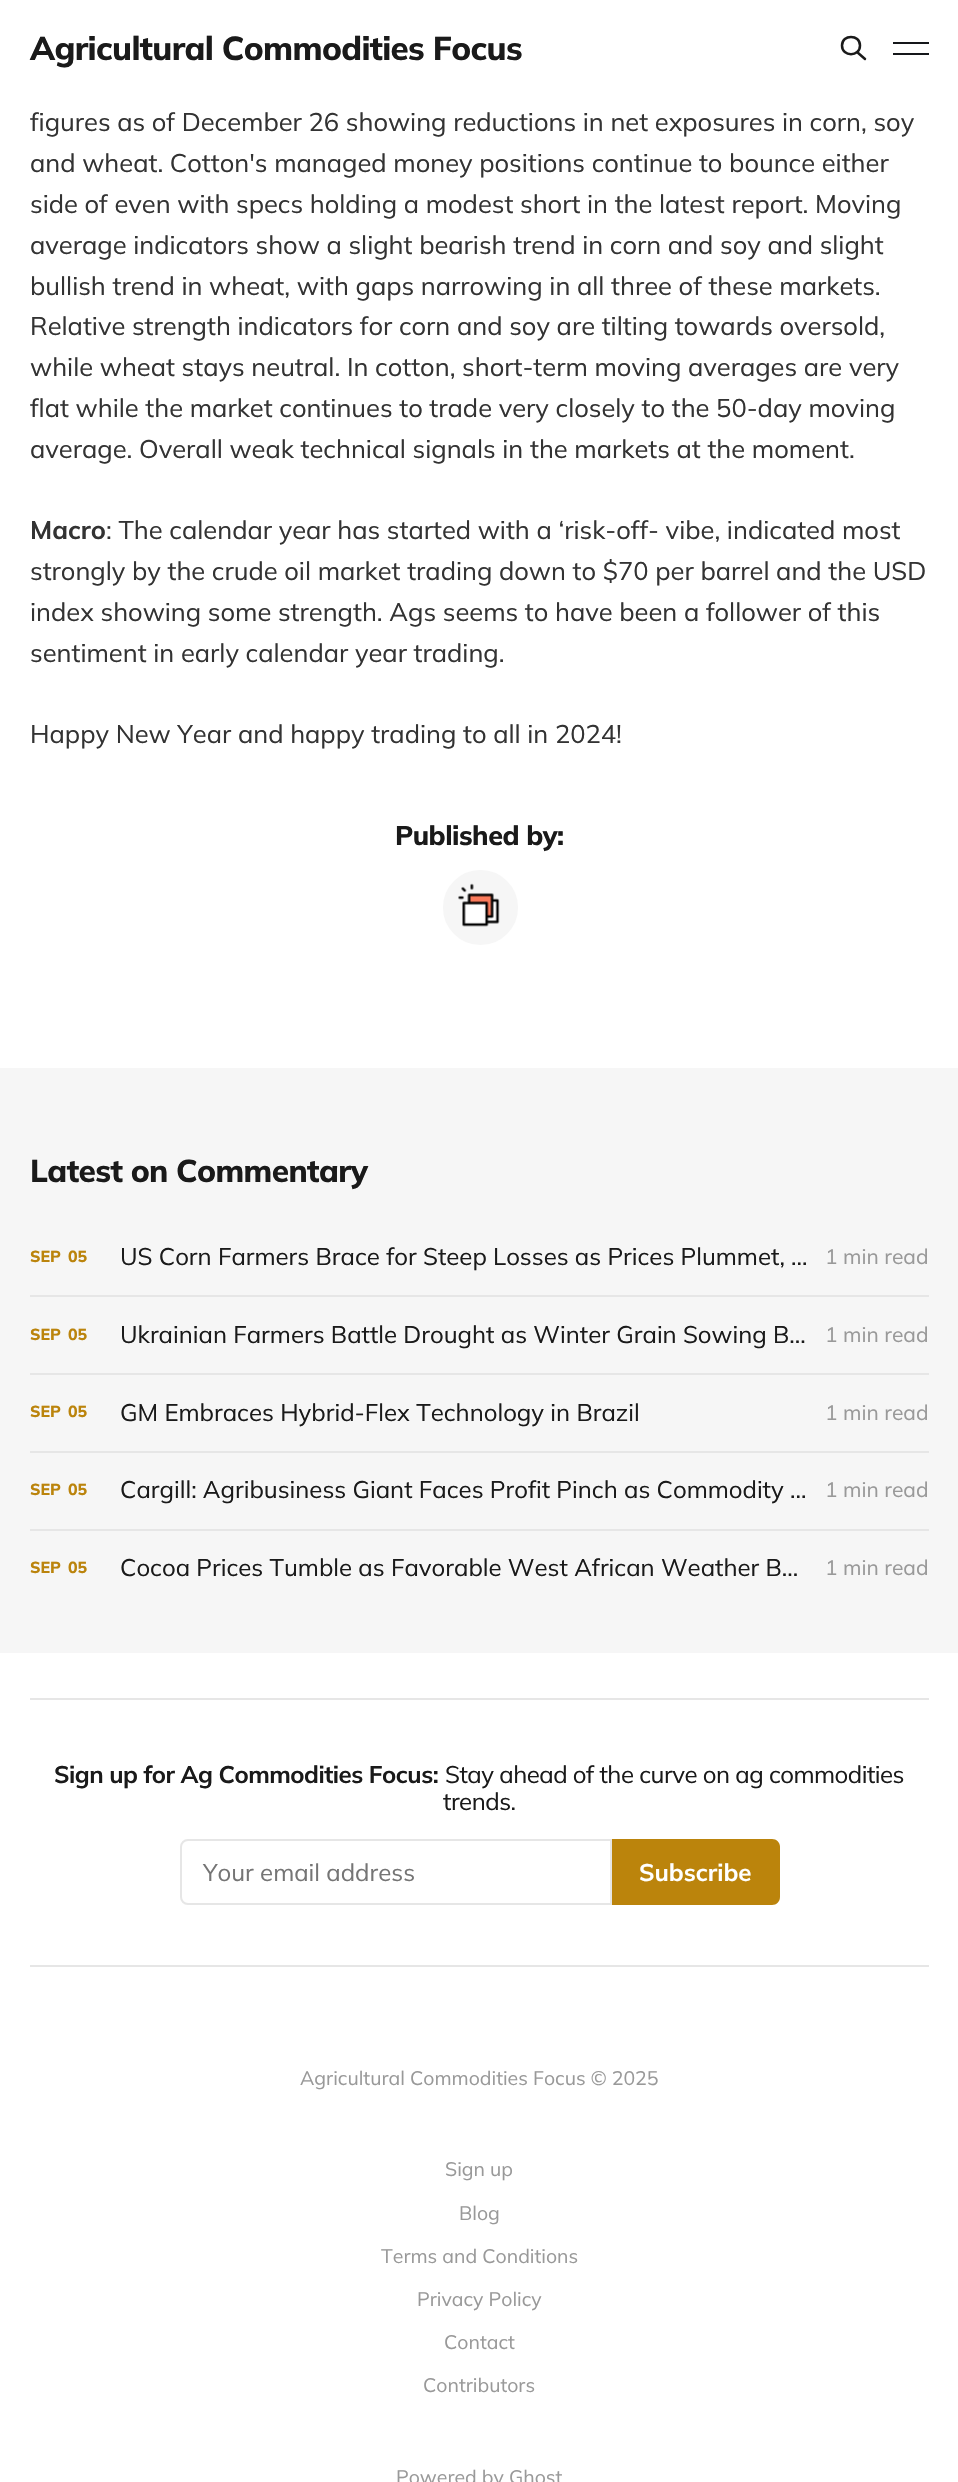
void draw(SkCanvas* canvas) {
    SkPaint paint;
    paint.setAntiAlias(true);
    auto spacedText = [&](const char* s, float x, float y, const SkFont& font, const SkPaint& ink, float letter, float word) {
        std::vector<SkGlyphID> glyphs(font.countText(s, strlen(s), SkTextEncoding::kUTF8));
        std::vector<float> xs(glyphs.size());
        font.textToGlyphs(s, strlen(s), SkTextEncoding::kUTF8, glyphs);
        font.getXPos(glyphs, xs, x);
        float extra = 0;
        for (size_t i = 0; i < glyphs.size(); i++) {
            xs[i] += extra;
            extra += letter + word * (glyphs[i] == font.unicharToGlyph(' '));
        }
        canvas->drawTextBlob(SkTextBlob::MakeFromPosHGlyphs(glyphs, xs, y, font), 0, 0, ink);
    };
    canvas->clear(0xFFFFFFFF);
    SkFont font1(fontMgr->matchFamilyStyle("Mulish", SkFontStyle(800, SkFontStyle::kNormal_Width, SkFontStyle::kUpright_Slant)), 33);
    font1.setSubpixel(true);
    paint.setColor(0xFF1A1A1A);
    spacedText("Agricultural Commodities Focus", 30, 60, font1, paint, -0.65f, 0);
    paint.setStyle(SkPaint::kStroke_Style);
    paint.setStrokeWidth(2.5f);
    paint.setStrokeCap(SkPaint::kRound_Cap);
    paint.setStrokeJoin(SkPaint::kRound_Join);
    canvas->drawPath(SkPathBuilder().moveTo(865, 59).lineTo(857, 52).moveTo(860, 45.5f).cubicTo(860, 57, 842, 57, 842, 45.5f).cubicTo(842, 34, 860, 34, 860, 45.5f).close().detach(), paint);
    paint.setStyle(SkPaint::kFill_Style);
    paint.setColor(0xFF15171A);
    canvas->drawRect(SkRect::MakeXYWH(893, 42, 36, 2), paint);
    canvas->drawRect(SkRect::MakeXYWH(893, 53, 36, 2), paint);
    SkFont font2(fontMgr->matchFamilyStyle("Mulish", SkFontStyle::Normal()), 25.5f);
    font2.setSubpixel(true);
    paint.setColor(0xFF333333);
    canvas->drawString("figures as of December 26 showing reductions in net exposures in corn, soy", 30, 131, font2, paint);
    canvas->drawString("and wheat. Cotton's managed money positions continue to bounce either", 30, 172, font2, paint);
    canvas->drawString("side of even with specs holding a modest short in the latest report. Moving", 30, 213, font2, paint);
    canvas->drawString("average indicators show a slight bearish trend in corn and soy and slight", 30, 254, font2, paint);
    canvas->drawString("bullish trend in wheat, with gaps narrowing in all three of these markets.", 30, 295, font2, paint);
    canvas->drawString("Relative strength indicators for corn and soy are tilting towards oversold,", 30, 335, font2, paint);
    canvas->drawString("while wheat stays neutral. In cotton, short-term moving averages are very", 30, 376, font2, paint);
    canvas->drawString("flat while the market continues to trade very closely to the 50-day moving", 30, 417, font2, paint);
    canvas->drawString("average. Overall weak technical signals in the markets at the moment.", 30, 458, font2, paint);
    SkFont font3(fontMgr->matchFamilyStyle("Mulish", SkFontStyle::Bold()), 25.5f);
    font3.setSubpixel(true);
    canvas->drawString("Macro", 30, 539, font3, paint);
    canvas->drawString(": The calendar year has started with a ‘risk-off- vibe, indicated most", 106, 539, font2, paint);
    canvas->drawString("strongly by the crude oil market trading down to $70 per barrel and the USD", 30, 580, font2, paint);
    canvas->drawString("index showing some strength. Ags seems to have been a follower of this", 30, 621, font2, paint);
    canvas->drawString("sentiment in early calendar year trading.", 30, 662, font2, paint);
    canvas->drawString("Happy New Year and happy trading to all in 2024!", 30, 743, font2, paint);
    SkFont font4(fontMgr->matchFamilyStyle("Mulish", SkFontStyle(800, SkFontStyle::kNormal_Width, SkFontStyle::kUpright_Slant)), 27);
    font4.setSubpixel(true);
    paint.setColor(0xFF1A1A1A);
    spacedText("Published by:", 395, 845, font4, paint, -0.5f, 0);
    paint.setColor(0xFFF6F6F6);
    canvas->drawCircle(480.5f, 907.5f, 39, paint);
    paint.setStyle(SkPaint::kStroke_Style);
    paint.setStrokeWidth(3);
    paint.setStrokeCap(SkPaint::kButt_Cap);
    paint.setStrokeJoin(SkPaint::kMiter_Join);
    paint.setColor(0xFFFFFFFF);
    canvas->drawCircle(480.5f, 907.5f, 39, paint);
    canvas->drawImageRect(SkImages::DeferredFromEncodedData(SkData::MakeFromFileName("img1.png")), SkRect::MakeXYWH(458, 883, 42, 44), SkSamplingOptions());
    paint.setStyle(SkPaint::kFill_Style);
    paint.setColor(0xFFF6F6F6);
    canvas->drawRect(SkRect::MakeXYWH(0, 1068, 958, 585), paint);
    SkFont font5(fontMgr->matchFamilyStyle("Mulish", SkFontStyle(800, SkFontStyle::kNormal_Width, SkFontStyle::kUpright_Slant)), 31.5f);
    font5.setSubpixel(true);
    paint.setColor(0xFF1A1A1A);
    spacedText("Latest on Commentary", 30, 1182, font5, paint, -0.6f, 0);
    SkFont font6(fontMgr->matchFamilyStyle("Mulish", SkFontStyle(800, SkFontStyle::kNormal_Width, SkFontStyle::kUpright_Slant)), 16);
    font6.setSubpixel(true);
    paint.setColor(0xFFBB840C);
    canvas->drawString("SEP", 30, 1262, font6, paint);
    canvas->drawString("05", 68, 1262, font6, paint);
    SkFont font7(fontMgr->matchFamilyStyle("Mulish", SkFontStyle::Normal()), 24);
    font7.setSubpixel(true);
    paint.setColor(0xFF1A1A1A);
    canvas->drawString("US Corn Farmers Brace for Steep Losses as Prices Plummet, …", 120, 1265, font7, paint);
    SkFont font8(fontMgr->matchFamilyStyle("Mulish", SkFontStyle::Normal()), 21);
    font8.setSubpixel(true);
    paint.setColor(0xFF999999);
    canvas->drawString("1 min read", 825, 1264, font8, paint);
    paint.setColor(0xFFE6E6E6);
    canvas->drawRect(SkRect::MakeXYWH(30, 1295, 899, 2), paint);
    paint.setColor(0xFFBB840C);
    canvas->drawString("SEP", 30, 1340, font6, paint);
    canvas->drawString("05", 68, 1340, font6, paint);
    paint.setColor(0xFF1A1A1A);
    canvas->drawString("Ukrainian Farmers Battle Drought as Winter Grain Sowing B…", 120, 1343, font7, paint);
    paint.setColor(0xFF999999);
    canvas->drawString("1 min read", 825, 1342, font8, paint);
    paint.setColor(0xFFE6E6E6);
    canvas->drawRect(SkRect::MakeXYWH(30, 1373, 899, 2), paint);
    paint.setColor(0xFFBB840C);
    canvas->drawString("SEP", 30, 1417, font6, paint);
    canvas->drawString("05", 68, 1417, font6, paint);
    paint.setColor(0xFF1A1A1A);
    canvas->drawString("GM Embraces Hybrid-Flex Technology in Brazil", 120, 1421, font7, paint);
    paint.setColor(0xFF999999);
    canvas->drawString("1 min read", 825, 1420, font8, paint);
    paint.setColor(0xFFE6E6E6);
    canvas->drawRect(SkRect::MakeXYWH(30, 1451, 899, 2), paint);
    paint.setColor(0xFFBB840C);
    canvas->drawString("SEP", 30, 1495, font6, paint);
    canvas->drawString("05", 68, 1495, font6, paint);
    paint.setColor(0xFF1A1A1A);
    canvas->drawString("Cargill: Agribusiness Giant Faces Profit Pinch as Commodity …", 120, 1498, font7, paint);
    paint.setColor(0xFF999999);
    canvas->drawString("1 min read", 825, 1497, font8, paint);
    paint.setColor(0xFFE6E6E6);
    canvas->drawRect(SkRect::MakeXYWH(30, 1529, 899, 2), paint);
    paint.setColor(0xFFBB840C);
    canvas->drawString("SEP", 30, 1573, font6, paint);
    canvas->drawString("05", 68, 1573, font6, paint);
    paint.setColor(0xFF1A1A1A);
    canvas->drawString("Cocoa Prices Tumble as Favorable West African Weather B…", 120, 1576, font7, paint);
    paint.setColor(0xFF999999);
    canvas->drawString("1 min read", 825, 1575, font8, paint);
    paint.setColor(0xFFE6E6E6);
    canvas->drawRect(SkRect::MakeXYWH(30, 1698, 899, 2), paint);
    canvas->drawRect(SkRect::MakeXYWH(30, 1965, 899, 2), paint);
    SkFont font9(fontMgr->matchFamilyStyle("Mulish", SkFontStyle::Bold()), 24);
    font9.setSubpixel(true);
    paint.setColor(0xFF1A1A1A);
    spacedText("Sign up for Ag Commodities Focus:", 54, 1783, font9, paint, -0.5f, 0);
    spacedText("Stay ahead of the curve on ag commodities", 445, 1783, font7, paint, -0.5f, 0);
    spacedText("trends.", 443, 1810, font7, paint, -0.5f, 0);
    paint.setStyle(SkPaint::kStroke_Style);
    paint.setStrokeWidth(2);
    paint.setColor(0xFFE6E6E6);
    canvas->drawPath(SkPathBuilder().moveTo(188, 1840).lineTo(611, 1840).lineTo(611, 1904).lineTo(188, 1904).cubicTo(184, 1904, 181, 1901, 181, 1897).lineTo(181, 1847).cubicTo(181, 1843, 184, 1840, 188, 1840).close().detach(), paint);
    paint.setStyle(SkPaint::kFill_Style);
    paint.setColor(0xFF757575);
    canvas->drawString("Your email address", 203, 1881, font7, paint);
    paint.setColor(0xFFBB840C);
    canvas->drawPath(SkPathBuilder().moveTo(612, 1839).lineTo(772, 1839).cubicTo(776.5f, 1839, 780, 1842.5f, 780, 1847).lineTo(780, 1897).cubicTo(780, 1901.5f, 776.5f, 1905, 772, 1905).lineTo(612, 1905).close().detach(), paint);
    paint.setColor(0xFFFFFFFF);
    canvas->drawString("Subscribe", 639, 1881, font9, paint);
    SkFont font10(fontMgr->matchFamilyStyle("Mulish", SkFontStyle::Normal()), 19.5f);
    font10.setSubpixel(true);
    paint.setColor(0xFF999999);
    canvas->drawString("Agricultural Commodities Focus © 2025", 300, 2085, font10, paint);
    canvas->drawString("Sign up", 445, 2176, font10, paint);
    canvas->drawString("Blog", 459, 2220, font10, paint);
    canvas->drawString("Terms and Conditions", 381, 2263, font10, paint);
    canvas->drawString("Privacy Policy", 417, 2306, font10, paint);
    canvas->drawString("Contact", 444, 2349, font10, paint);
    canvas->drawString("Contributors", 423, 2392, font10, paint);
    canvas->drawString("Powered by Ghost", 396, 2484, font10, paint);
}
